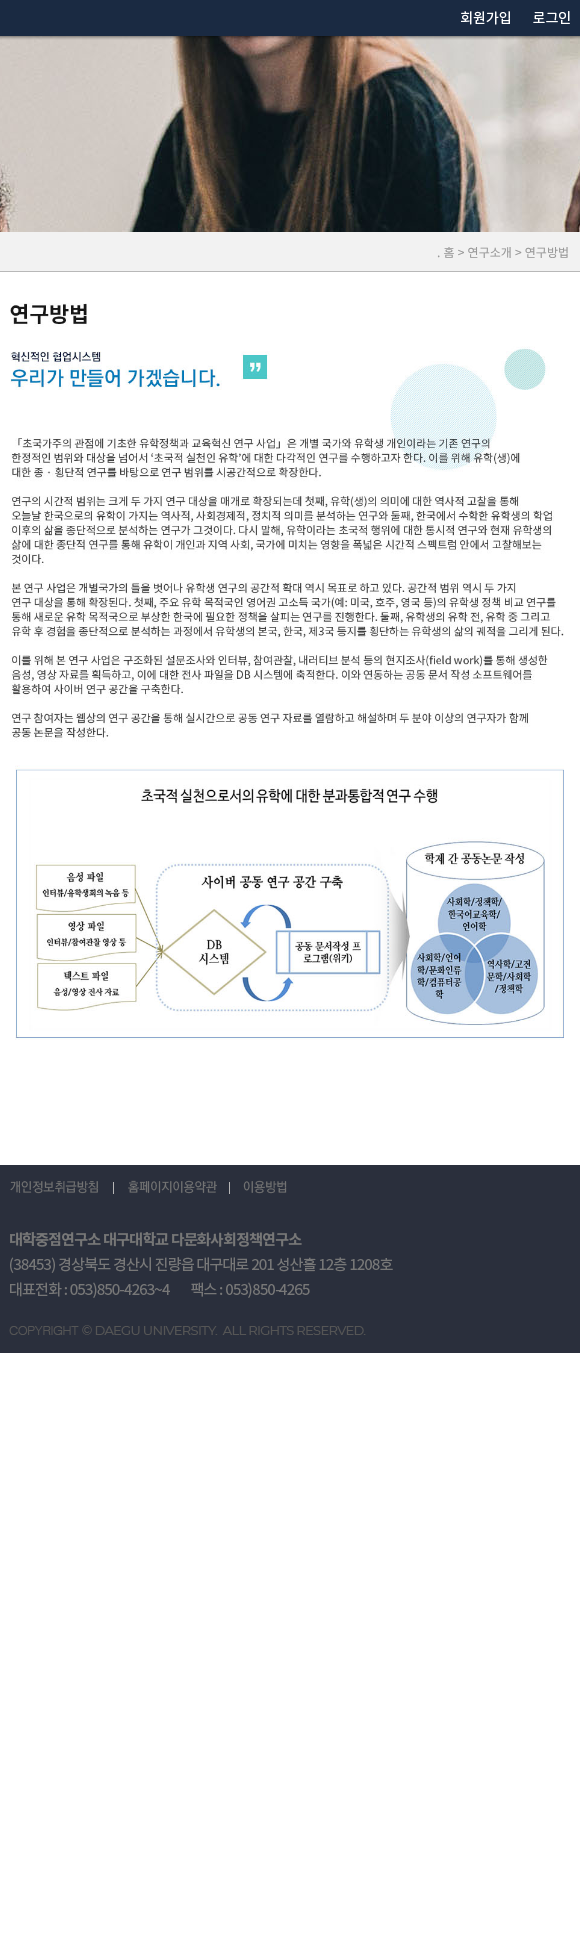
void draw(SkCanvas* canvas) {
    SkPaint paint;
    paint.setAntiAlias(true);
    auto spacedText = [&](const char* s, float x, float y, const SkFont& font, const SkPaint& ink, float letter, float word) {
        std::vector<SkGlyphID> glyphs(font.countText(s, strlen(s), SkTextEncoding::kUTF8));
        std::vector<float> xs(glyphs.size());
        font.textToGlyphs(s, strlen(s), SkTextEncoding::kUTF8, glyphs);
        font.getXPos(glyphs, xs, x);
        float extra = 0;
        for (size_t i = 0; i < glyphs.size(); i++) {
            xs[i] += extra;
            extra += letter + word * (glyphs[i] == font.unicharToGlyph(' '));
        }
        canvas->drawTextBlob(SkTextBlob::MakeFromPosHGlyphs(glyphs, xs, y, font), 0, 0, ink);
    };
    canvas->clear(0xFFFFFFFF);
    paint.setColor(0xFF1A2A42);
    canvas->drawRect(SkRect::MakeXYWH(0, 0, 580, 36), paint);
    canvas->drawImageRect(SkImages::DeferredFromEncodedData(SkData::MakeFromFileName("img1.png")), SkRect::MakeXYWH(461, 11, 49, 14), SkSamplingOptions());
    canvas->drawImageRect(SkImages::DeferredFromEncodedData(SkData::MakeFromFileName("img2.png")), SkRect::MakeXYWH(533, 11, 37, 13), SkSamplingOptions());
    canvas->drawImageRect(SkImages::DeferredFromEncodedData(SkData::MakeFromFileName("img3.png")), SkRect::MakeXYWH(0, 36, 580, 196), SkSamplingOptions());
    canvas->drawImageRect(SkImages::DeferredFromEncodedData(SkData::MakeFromFileName("img4.png")), SkRect::MakeXYWH(0, 36, 580, 4), SkSamplingOptions());
    paint.setColor(0xFFF2F2F2);
    canvas->drawRect(SkRect::MakeXYWH(0, 232, 580, 39), paint);
    paint.setColor(0xFFB8B8B8);
    canvas->drawRect(SkRect::MakeXYWH(0, 271, 580, 1), paint);
    SkFont font1(fontMgr->matchFamilyStyle("Noto Sans KR", SkFontStyle::Normal()), 12);
    font1.setSubpixel(true);
    paint.setColor(0xFF999999);
    spacedText(". 홈 > 연구소개 > 연구방법", 437, 257, font1, paint, 0, 0.5f);
    canvas->drawImageRect(SkImages::DeferredFromEncodedData(SkData::MakeFromFileName("img5.png")), SkRect::MakeXYWH(10, 303, 554, 737), SkSamplingOptions());
    paint.setColor(0xFF2A2F3C);
    canvas->drawRect(SkRect::MakeXYWH(0, 1165, 580, 188), paint);
    canvas->drawImageRect(SkImages::DeferredFromEncodedData(SkData::MakeFromFileName("img6.png")), SkRect::MakeXYWH(9, 1232, 384, 103), SkSamplingOptions());
    canvas->drawImageRect(SkImages::DeferredFromEncodedData(SkData::MakeFromFileName("img7.png")), SkRect::MakeXYWH(10, 1181, 104, 13), SkSamplingOptions());
    canvas->drawImageRect(SkImages::DeferredFromEncodedData(SkData::MakeFromFileName("img8.png")), SkRect::MakeXYWH(128, 1180, 102, 14), SkSamplingOptions());
    canvas->drawImageRect(SkImages::DeferredFromEncodedData(SkData::MakeFromFileName("img9.png")), SkRect::MakeXYWH(243, 1180, 44, 14), SkSamplingOptions());
}
